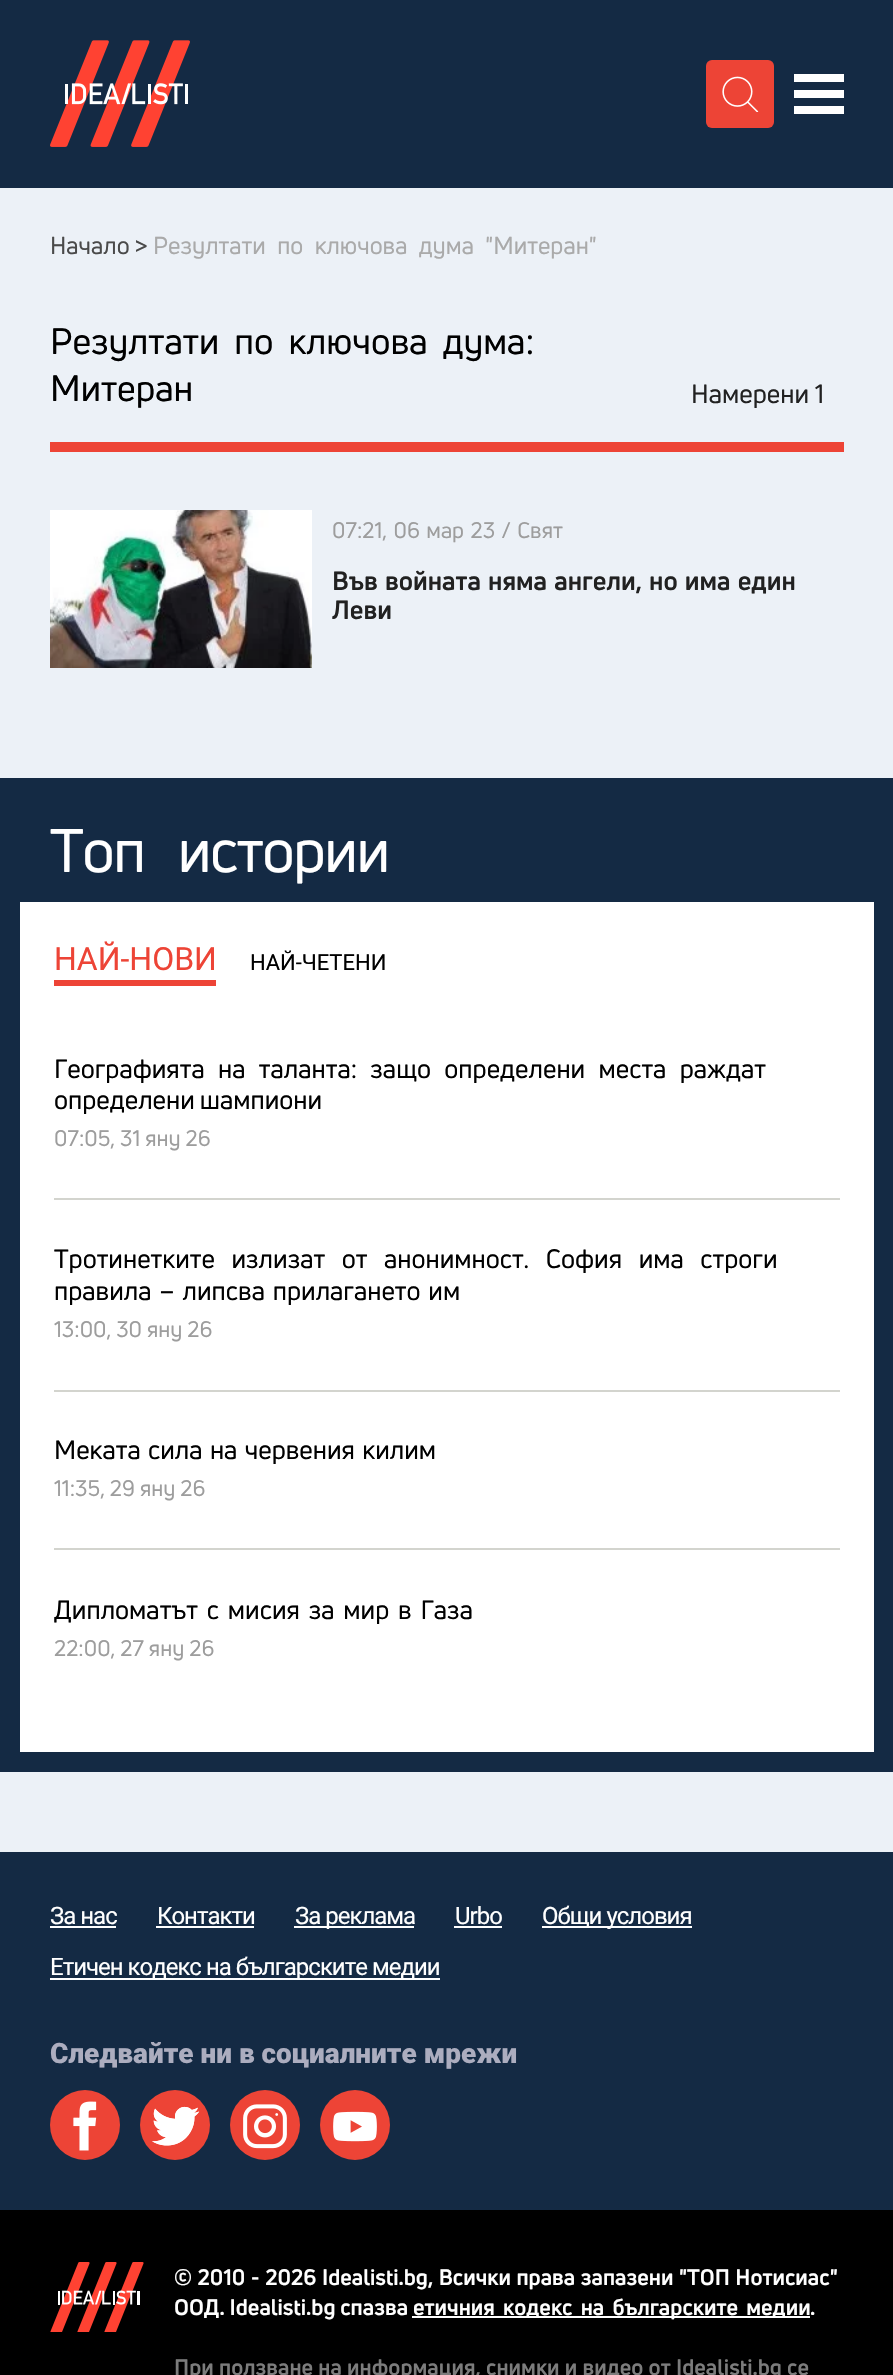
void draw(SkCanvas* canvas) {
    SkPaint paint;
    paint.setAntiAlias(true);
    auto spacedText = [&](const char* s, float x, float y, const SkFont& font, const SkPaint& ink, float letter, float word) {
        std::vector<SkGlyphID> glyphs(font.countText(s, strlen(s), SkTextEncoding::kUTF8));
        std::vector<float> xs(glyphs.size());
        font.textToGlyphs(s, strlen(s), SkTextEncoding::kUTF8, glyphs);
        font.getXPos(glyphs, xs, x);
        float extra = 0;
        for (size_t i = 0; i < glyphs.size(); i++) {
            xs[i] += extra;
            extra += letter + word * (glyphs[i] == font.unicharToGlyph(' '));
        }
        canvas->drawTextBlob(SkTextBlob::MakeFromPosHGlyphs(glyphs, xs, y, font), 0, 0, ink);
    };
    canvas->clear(0xFFECF1F7);
    paint.setColor(0xFF142A44);
    canvas->drawRect(SkRect::MakeXYWH(0, 0, 893, 188), paint);
    canvas->drawImageRect(SkImages::DeferredFromEncodedData(SkData::MakeFromFileName("img1.png")), SkRect::MakeXYWH(50, 40, 140, 107), SkSamplingOptions());
    paint.setColor(0xFFED4436);
    canvas->drawRoundRect(SkRect::MakeXYWH(706, 60, 68, 68), 6, 6, paint);
    canvas->drawImageRect(SkImages::DeferredFromEncodedData(SkData::MakeFromFileName("img2.png")), SkRect::MakeXYWH(722, 76, 37, 36), SkSamplingOptions());
    paint.setColor(0xFFFFFFFF);
    canvas->drawRect(SkRect::MakeXYWH(794, 74, 50, 8), paint);
    canvas->drawRect(SkRect::MakeXYWH(794, 90, 50, 8), paint);
    canvas->drawRect(SkRect::MakeXYWH(794, 106, 50, 8), paint);
    SkFont font1(fontMgr->matchFamilyStyle("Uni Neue", SkFontStyle::Normal()), 24);
    font1.setSubpixel(true);
    paint.setColor(0xFF4A4A4A);
    spacedText("Начало >", 50, 254, font1, paint, 0, -1);
    paint.setColor(0xFFAAAAAA);
    spacedText("Резултати по ключова дума \"Митеран\"", 153, 254, font1, paint, 0, 6);
    paint.setColor(0xFFED4436);
    canvas->drawRect(SkRect::MakeXYWH(50, 442, 794, 10), paint);
    SkFont font2(fontMgr->matchFamilyStyle("Uni Neue", SkFontStyle::Normal()), 36);
    font2.setSubpixel(true);
    paint.setColor(0xFF000000);
    spacedText("Резултати по ключова дума:", 50, 354, font2, paint, 0, 7);
    canvas->drawString("Митеран", 50, 401, font2, paint);
    SkFont font3(fontMgr->matchFamilyStyle("Uni Neue", SkFontStyle::Normal()), 26);
    font3.setSubpixel(true);
    paint.setColor(0xFF212121);
    canvas->drawString("Намерени 1", 691, 403, font3, paint);
    canvas->drawImageRect(SkImages::DeferredFromEncodedData(SkData::MakeFromFileName("img3.png")), SkRect::MakeXYWH(50, 510, 262, 158), SkSamplingOptions());
    SkFont font4(fontMgr->matchFamilyStyle("Uni Neue", SkFontStyle::Normal()), 22);
    font4.setSubpixel(true);
    paint.setColor(0xFF9D9D9D);
    spacedText("07:21, 06 мар 23 / Свят", 332, 538, font4, paint, 0, 1.5f);
    SkFont font5(fontMgr->matchFamilyStyle("Uni Neue", SkFontStyle::Bold()), 26);
    font5.setSubpixel(true);
    paint.setColor(0xFF212121);
    spacedText("Във войната няма ангели, но има един", 332, 590, font5, paint, 0, 1.5f);
    canvas->drawString("Леви", 332, 619, font5, paint);
    paint.setColor(0xFFFFFFFF);
    canvas->drawRect(SkRect::MakeXYWH(20, 902, 854, 850), paint);
    paint.setStyle(SkPaint::kStroke_Style);
    paint.setStrokeWidth(20);
    paint.setColor(0xFF142A44);
    canvas->drawRect(SkRect::MakeXYWH(10, 788, 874, 974), paint);
    paint.setStyle(SkPaint::kFill_Style);
    canvas->drawRect(SkRect::MakeXYWH(20, 798, 854, 104), paint);
    SkFont font6(fontMgr->matchFamilyStyle("Uni Neue", SkFontStyle::Normal()), 60);
    font6.setSubpixel(true);
    paint.setColor(0xFFFFFFFF);
    spacedText("Топ истории", 50, 872, font6, paint, -1.4f, 21);
    paint.setColor(0xFFED4436);
    canvas->drawRect(SkRect::MakeXYWH(54, 980, 162, 6), paint);
    SkFont font7(fontMgr->matchFamilyStyle("Roboto", SkFontStyle::Normal()), 32);
    font7.setSubpixel(true);
    canvas->drawString("НАЙ-НОВИ", 54, 970, font7, paint);
    SkFont font8(fontMgr->matchFamilyStyle("Roboto", SkFontStyle::Normal()), 22);
    font8.setSubpixel(true);
    paint.setColor(0xFF000000);
    canvas->drawString("НАЙ-ЧЕТЕНИ", 250, 970, font8, paint);
    paint.setColor(0xFFD3D4CE);
    canvas->drawRect(SkRect::MakeXYWH(54, 1198, 786, 2), paint);
    paint.setColor(0xFF000000);
    spacedText("Географията на таланта: защо определени места раждат", 54, 1078, font3, paint, 0, 7.5f);
    spacedText("определени шампиони", 54, 1109, font3, paint, 0, -1);
    paint.setColor(0xFF9D9D9D);
    canvas->drawString("07:05, 31 яну 26", 54, 1146, font4, paint);
    paint.setColor(0xFFD3D4CE);
    canvas->drawRect(SkRect::MakeXYWH(54, 1390, 786, 2), paint);
    paint.setColor(0xFF000000);
    spacedText("Тротинетките излизат от анонимност. София има строги", 54, 1268, font3, paint, 0, 10.75f);
    spacedText("правила – липсва прилагането им", 54, 1300, font3, paint, 0, 2);
    paint.setColor(0xFF9D9D9D);
    canvas->drawString("13:00, 30 яну 26", 54, 1337, font4, paint);
    paint.setColor(0xFFD3D4CE);
    canvas->drawRect(SkRect::MakeXYWH(54, 1548, 786, 2), paint);
    paint.setColor(0xFF000000);
    spacedText("Меката сила на червения килим", 54, 1459, font3, paint, 0, 1.5f);
    paint.setColor(0xFF9D9D9D);
    canvas->drawString("11:35, 29 яну 26", 54, 1496, font4, paint);
    paint.setColor(0xFF000000);
    spacedText("Дипломатът с мисия за мир в Газа", 54, 1619, font3, paint, 0, 3);
    paint.setColor(0xFF9D9D9D);
    canvas->drawString("22:00, 27 яну 26", 54, 1656, font4, paint);
    paint.setColor(0xFF142A44);
    canvas->drawRect(SkRect::MakeXYWH(0, 1852, 893, 358), paint);
    SkFont font9(fontMgr->matchFamilyStyle("Roboto", SkFontStyle::Normal()), 24);
    font9.setSubpixel(true);
    paint.setColor(0xFFFFFFFF);
    spacedText("За нас", 50, 1924, font9, paint, -1, 0);
    canvas->drawRect(SkRect::MakeXYWH(50, 1926, 66, 2), paint);
    spacedText("Контакти", 157, 1924, font9, paint, -1, 0);
    canvas->drawRect(SkRect::MakeXYWH(156, 1926, 98, 2), paint);
    canvas->drawRect(SkRect::MakeXYWH(294, 1926, 120, 2), paint);
    spacedText("За реклама", 295, 1924, font9, paint, -1, 0);
    spacedText("Urbo", 455, 1924, font9, paint, -1, 0);
    canvas->drawRect(SkRect::MakeXYWH(454, 1926, 48, 2), paint);
    canvas->drawRect(SkRect::MakeXYWH(542, 1926, 150, 2), paint);
    spacedText("Общи условия", 542, 1924, font9, paint, -1, 0);
    canvas->drawRect(SkRect::MakeXYWH(50, 1978, 390, 2), paint);
    spacedText("Етичен кодекс на българските медии", 50, 1975, font9, paint, -1, 0);
    SkFont font10(fontMgr->matchFamilyStyle("Roboto", SkFontStyle(900, SkFontStyle::kNormal_Width, SkFontStyle::kUpright_Slant)), 28);
    font10.setSubpixel(true);
    paint.setColor(0xFFACADBF);
    canvas->drawString("Следвайте ни в социалните мрежи", 50, 2063, font10, paint);
    paint.setColor(0xFFED4436);
    canvas->drawCircle(85, 2125, 35, paint);
    canvas->drawImageRect(SkImages::DeferredFromEncodedData(SkData::MakeFromFileName("img4.png")), SkRect::MakeXYWH(73, 2101, 24, 50), SkSamplingOptions());
    canvas->drawCircle(175, 2125, 35, paint);
    canvas->drawImageRect(SkImages::DeferredFromEncodedData(SkData::MakeFromFileName("img5.png")), SkRect::MakeXYWH(152, 2106, 48, 40), SkSamplingOptions());
    canvas->drawCircle(265, 2125, 35, paint);
    canvas->drawImageRect(SkImages::DeferredFromEncodedData(SkData::MakeFromFileName("img6.png")), SkRect::MakeXYWH(243, 2104, 44, 45), SkSamplingOptions());
    canvas->drawCircle(355, 2125, 35, paint);
    canvas->drawImageRect(SkImages::DeferredFromEncodedData(SkData::MakeFromFileName("img7.png")), SkRect::MakeXYWH(333, 2111, 44, 31), SkSamplingOptions());
    paint.setColor(0xFF000000);
    canvas->drawRect(SkRect::MakeXYWH(0, 2210, 893, 165), paint);
    canvas->drawImageRect(SkImages::DeferredFromEncodedData(SkData::MakeFromFileName("img8.png")), SkRect::MakeXYWH(50, 2262, 94, 70), SkSamplingOptions());
    SkFont font11(fontMgr->matchFamilyStyle("Uni Neue", SkFontStyle::Bold()), 22);
    font11.setSubpixel(true);
    paint.setColor(0xFFFFFFFF);
    spacedText("© 2010 - 2026 Idealisti.bg, Всички права запазени \"ТОП Нотисиас\"", 174, 2285, font11, paint, 0, 0.75f);
    canvas->drawString("ООД. Idealisti.bg спазва", 174, 2315, font11, paint);
    canvas->drawRect(SkRect::MakeXYWH(412, 2316, 398, 2), paint);
    spacedText("етичния кодекс на българските медии", 413, 2315, font11, paint, 0, 3.5f);
    canvas->drawString(".", 810, 2315, font11, paint);
    paint.setColor(0xFF7C7C7C);
    spacedText("При ползване на информация, снимки и видео от Idealisti.bg се", 174, 2375, font11, paint, 0, 0.5f);
}
